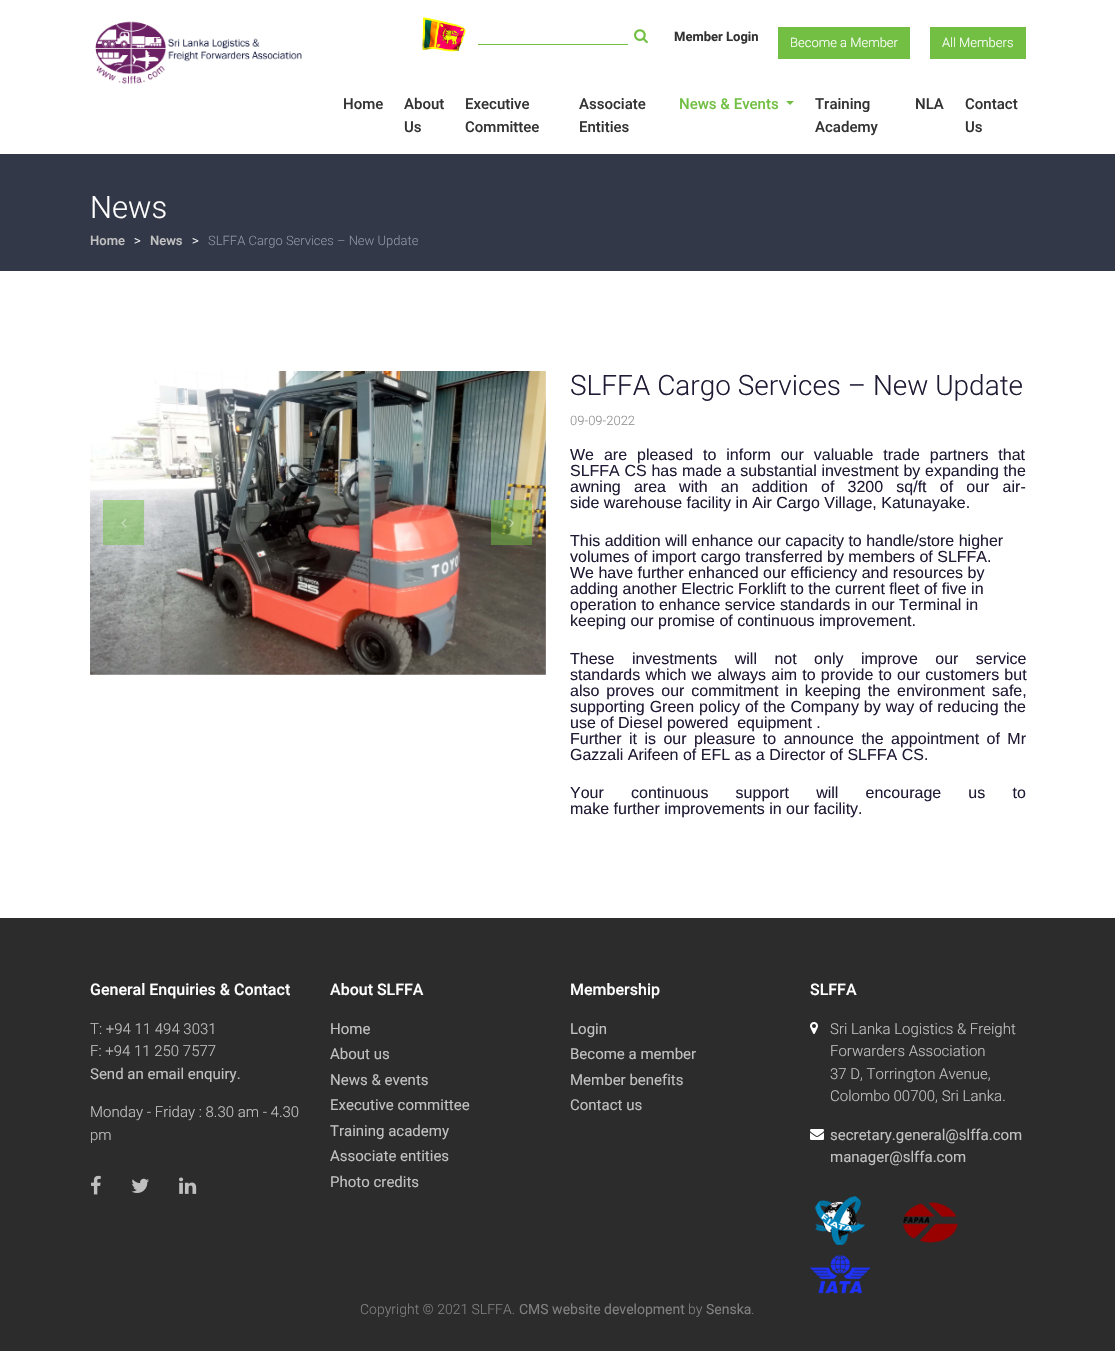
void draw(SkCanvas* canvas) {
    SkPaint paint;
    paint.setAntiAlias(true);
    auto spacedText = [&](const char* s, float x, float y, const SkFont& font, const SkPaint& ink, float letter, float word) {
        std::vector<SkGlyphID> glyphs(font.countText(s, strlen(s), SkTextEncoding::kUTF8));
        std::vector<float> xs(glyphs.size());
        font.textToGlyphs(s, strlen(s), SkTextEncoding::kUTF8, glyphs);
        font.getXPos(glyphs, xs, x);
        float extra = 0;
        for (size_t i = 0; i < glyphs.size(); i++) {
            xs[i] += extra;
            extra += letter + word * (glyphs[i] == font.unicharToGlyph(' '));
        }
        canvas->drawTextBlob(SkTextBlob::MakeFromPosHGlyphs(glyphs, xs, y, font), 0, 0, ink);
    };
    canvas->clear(0xFFFFFFFF);
    canvas->drawImageRect(SkImages::DeferredFromEncodedData(SkData::MakeFromFileName("img1.png")), SkRect::MakeXYWH(95, 21, 207, 63), SkSamplingOptions());
    canvas->drawImageRect(SkImages::DeferredFromEncodedData(SkData::MakeFromFileName("img2.png")), SkRect::MakeXYWH(422, 17, 44, 35), SkSamplingOptions());
    canvas->drawImageRect(SkImages::DeferredFromEncodedData(SkData::MakeFromFileName("img3.png")), SkRect::MakeXYWH(634, 29, 14, 15), SkSamplingOptions());
    paint.setColor(0xFF72BF44);
    canvas->drawRect(SkRect::MakeXYWH(478, 44, 150, 1), paint);
    SkFont font1(fontMgr->matchFamilyStyle("Roboto", SkFontStyle::Bold()), 13);
    font1.setSubpixel(true);
    paint.setColor(0xFF333333);
    canvas->drawString("Member Login", 674, 41, font1, paint);
    paint.setColor(0xFF72BF44);
    canvas->drawRect(SkRect::MakeXYWH(778, 27, 132, 32), paint);
    SkFont font2(fontMgr->matchFamilyStyle("Roboto", SkFontStyle(300, SkFontStyle::kNormal_Width, SkFontStyle::kUpright_Slant)), 13);
    font2.setSubpixel(true);
    paint.setColor(0xFFFFFFFF);
    canvas->drawString("Become a Member", 790, 47, font2, paint);
    paint.setColor(0xFF72BF44);
    canvas->drawRect(SkRect::MakeXYWH(930, 27, 96, 32), paint);
    paint.setColor(0xFFFFFFFF);
    canvas->drawString("All Members", 942, 47, font2, paint);
    SkFont font3(fontMgr->matchFamilyStyle("Roboto", SkFontStyle(500, SkFontStyle::kNormal_Width, SkFontStyle::kUpright_Slant)), 15);
    font3.setSubpixel(true);
    paint.setColor(0xFF333333);
    canvas->drawString("Home", 343, 109, font3, paint);
    canvas->drawString("About", 404, 109, font3, paint);
    canvas->drawString("Us", 404, 132, font3, paint);
    canvas->drawString("Executive", 465, 109, font3, paint);
    canvas->drawString("Committee", 465, 132, font3, paint);
    canvas->drawString("Associate", 579, 109, font3, paint);
    canvas->drawString("Entities", 579, 132, font3, paint);
    paint.setColor(0xFF72BF44);
    canvas->drawString("News & Events", 679, 109, font3, paint);
    canvas->drawPath(SkPathBuilder().moveTo(786, 101).lineTo(794, 101).lineTo(790, 105).close().detach(), paint);
    paint.setColor(0xFF333333);
    canvas->drawString("Training", 815, 109, font3, paint);
    canvas->drawString("Academy", 815, 132, font3, paint);
    canvas->drawString("NLA", 915, 109, font3, paint);
    canvas->drawString("Contact", 965, 109, font3, paint);
    canvas->drawString("Us", 965, 132, font3, paint);
    paint.setColor(0xFF333848);
    canvas->drawRect(SkRect::MakeXYWH(0, 154, 1115, 117), paint);
    SkFont font4(fontMgr->matchFamilyStyle("Roboto", SkFontStyle(300, SkFontStyle::kNormal_Width, SkFontStyle::kUpright_Slant)), 31);
    font4.setSubpixel(true);
    paint.setColor(0xFFFFFFFF);
    canvas->drawString("News", 90, 218, font4, paint);
    SkFont font5(fontMgr->matchFamilyStyle("Roboto", SkFontStyle(500, SkFontStyle::kNormal_Width, SkFontStyle::kUpright_Slant)), 13);
    font5.setSubpixel(true);
    paint.setColor(0xFFC1C1C1);
    canvas->drawString("Home", 90, 245, font5, paint);
    paint.setColor(0xFFFFFFFF);
    canvas->drawString(">", 134, 245, font2, paint);
    paint.setColor(0xFFC1C1C1);
    canvas->drawString("News", 150, 245, font5, paint);
    paint.setColor(0xFFFFFFFF);
    canvas->drawString(">", 192, 245, font2, paint);
    paint.setColor(0xFF8E93A2);
    canvas->drawString("SLFFA Cargo Services – New Update", 208, 245, font2, paint);
    canvas->drawImageRect(SkImages::DeferredFromEncodedData(SkData::MakeFromFileName("img4.png")), SkRect::MakeXYWH(90, 371, 456, 304), SkSamplingOptions());
    paint.setColor(0x8072BF44);
    canvas->drawRect(SkRect::MakeXYWH(103, 500, 41, 45), paint);
    canvas->drawImageRect(SkImages::DeferredFromEncodedData(SkData::MakeFromFileName("img5.png")), SkRect::MakeXYWH(121, 519, 6, 9), SkSamplingOptions());
    canvas->drawRect(SkRect::MakeXYWH(491, 500, 41, 45), paint);
    canvas->drawImageRect(SkImages::DeferredFromEncodedData(SkData::MakeFromFileName("img6.png")), SkRect::MakeXYWH(509, 519, 5, 9), SkSamplingOptions());
    SkFont font6(fontMgr->matchFamilyStyle("Roboto", SkFontStyle(300, SkFontStyle::kNormal_Width, SkFontStyle::kUpright_Slant)), 28);
    font6.setSubpixel(true);
    paint.setColor(0xFF201A34);
    canvas->drawString("SLFFA Cargo Services – New Update", 570, 395, font6, paint);
    paint.setColor(0xFF8E8E8E);
    canvas->drawString("09-09-2022", 570, 425, font2, paint);
    SkFont font7(fontMgr->matchFamilyStyle("Liberation Sans", SkFontStyle::Normal()), 16);
    font7.setSubpixel(true);
    paint.setColor(0xFF201A34);
    spacedText("We are pleased to inform our valuable trade partners that", 570, 460, font7, paint, 0, 5.5f);
    spacedText("SLFFA CS has made a substantial investment by expanding the", 570, 476, font7, paint, 0, 0.25f);
    spacedText("awning area with an addition of 3200 sq/ft of our air-", 570, 492, font7, paint, 0, 8.75f);
    canvas->drawString("side warehouse facility in Air Cargo Village, Katunayake.", 570, 508, font7, paint);
    canvas->drawString("This addition will enhance our capacity to handle/store higher", 570, 546, font7, paint);
    canvas->drawString("volumes of import cargo transferred by members of SLFFA.", 570, 562, font7, paint);
    canvas->drawString("We have further enhanced our efficiency and resources by", 570, 578, font7, paint);
    canvas->drawString("adding another Electric Forklift to the current fleet of five in", 570, 594, font7, paint);
    canvas->drawString("operation to enhance service standards in our Terminal in", 570, 610, font7, paint);
    canvas->drawString("keeping our promise of continuous improvement.", 570, 626, font7, paint);
    spacedText("These investments will not only improve our service", 570, 664, font7, paint, 0, 13);
    spacedText("standards which we always aim to provide to our customers but", 570, 680, font7, paint, 0, 0.75f);
    spacedText("also proves our commitment in keeping the environment safe,", 570, 696, font7, paint, 0, 2.5f);
    spacedText("supporting Green policy of the Company by way of reducing the", 570, 712, font7, paint, 0, 0.5f);
    canvas->drawString("use of Diesel powered  equipment .", 570, 728, font7, paint);
    spacedText("Further it is our pleasure to announce the appointment of Mr", 570, 744, font7, paint, 0, 3);
    canvas->drawString("Gazzali Arifeen of EFL as a Director of SLFFA CS.", 570, 760, font7, paint);
    spacedText("Your continuous support will encourage us to", 570, 798, font7, paint, 0, 22.75f);
    canvas->drawString("make further improvements in our facility.", 570, 814, font7, paint);
    paint.setColor(0xFF2C2C2C);
    canvas->drawRect(SkRect::MakeXYWH(0, 918, 1115, 433), paint);
    SkFont font8(fontMgr->matchFamilyStyle("Roboto", SkFontStyle(500, SkFontStyle::kNormal_Width, SkFontStyle::kUpright_Slant)), 16);
    font8.setSubpixel(true);
    paint.setColor(0xFFFFFFFF);
    canvas->drawString("General Enquiries & Contact", 90, 995, font8, paint);
    SkFont font9(fontMgr->matchFamilyStyle("Roboto", SkFontStyle(300, SkFontStyle::kNormal_Width, SkFontStyle::kUpright_Slant)), 15);
    font9.setSubpixel(true);
    paint.setColor(0xFFC1C1C1);
    canvas->drawString("T: +94 11 494 3031", 90, 1034, font9, paint);
    canvas->drawString("F: +94 11 250 7577", 90, 1056, font9, paint);
    SkFont font10(fontMgr->matchFamilyStyle("Roboto", SkFontStyle::Normal()), 15);
    font10.setSubpixel(true);
    canvas->drawString("Send an email enquiry.", 90, 1079, font10, paint);
    canvas->drawString("Monday - Friday : 8.30 am - 4.30", 90, 1117, font9, paint);
    canvas->drawString("pm", 90, 1140, font9, paint);
    canvas->drawImageRect(SkImages::DeferredFromEncodedData(SkData::MakeFromFileName("img7.png")), SkRect::MakeXYWH(91, 1175, 10, 20), SkSamplingOptions());
    canvas->drawImageRect(SkImages::DeferredFromEncodedData(SkData::MakeFromFileName("img8.png")), SkRect::MakeXYWH(131, 1178, 18, 15), SkSamplingOptions());
    canvas->drawImageRect(SkImages::DeferredFromEncodedData(SkData::MakeFromFileName("img9.png")), SkRect::MakeXYWH(179, 1177, 18, 17), SkSamplingOptions());
    paint.setColor(0xFFFFFFFF);
    canvas->drawString("About SLFFA", 330, 995, font8, paint);
    paint.setColor(0xFFC1C1C1);
    canvas->drawString("Home", 330, 1034, font10, paint);
    canvas->drawString("About us", 330, 1059, font10, paint);
    canvas->drawString("News & events", 330, 1085, font10, paint);
    canvas->drawString("Executive committee", 330, 1110, font10, paint);
    canvas->drawString("Training academy", 330, 1136, font10, paint);
    canvas->drawString("Associate entities", 330, 1161, font10, paint);
    canvas->drawString("Photo credits", 330, 1187, font10, paint);
    paint.setColor(0xFFFFFFFF);
    canvas->drawString("Membership", 570, 995, font8, paint);
    paint.setColor(0xFFC1C1C1);
    canvas->drawString("Login", 570, 1034, font10, paint);
    canvas->drawString("Become a member", 570, 1059, font10, paint);
    canvas->drawString("Member benefits", 570, 1085, font10, paint);
    canvas->drawString("Contact us", 570, 1110, font10, paint);
    paint.setColor(0xFFFFFFFF);
    canvas->drawString("SLFFA", 810, 995, font8, paint);
    canvas->drawImageRect(SkImages::DeferredFromEncodedData(SkData::MakeFromFileName("img10.png")), SkRect::MakeXYWH(810, 1022, 8, 12), SkSamplingOptions());
    paint.setColor(0xFFC1C1C1);
    canvas->drawString("Sri Lanka Logistics & Freight", 830, 1034, font9, paint);
    canvas->drawString("Forwarders Association", 830, 1056, font9, paint);
    canvas->drawString("37 D, Torrington Avenue,", 830, 1079, font9, paint);
    canvas->drawString("Colombo 00700, Sri Lanka.", 830, 1101, font9, paint);
    canvas->drawImageRect(SkImages::DeferredFromEncodedData(SkData::MakeFromFileName("img11.png")), SkRect::MakeXYWH(810, 1129, 14, 11), SkSamplingOptions());
    canvas->drawString("secretary.general@slffa.com", 830, 1140, font10, paint);
    canvas->drawString("manager@slffa.com", 830, 1162, font10, paint);
    canvas->drawImageRect(SkImages::DeferredFromEncodedData(SkData::MakeFromFileName("img12.png")), SkRect::MakeXYWH(815, 1196, 50, 49), SkSamplingOptions());
    canvas->drawImageRect(SkImages::DeferredFromEncodedData(SkData::MakeFromFileName("img13.png")), SkRect::MakeXYWH(902, 1202, 56, 41), SkSamplingOptions());
    canvas->drawImageRect(SkImages::DeferredFromEncodedData(SkData::MakeFromFileName("img14.png")), SkRect::MakeXYWH(810, 1255, 60, 39), SkSamplingOptions());
    SkFont font11(fontMgr->matchFamilyStyle("Roboto", SkFontStyle(300, SkFontStyle::kNormal_Width, SkFontStyle::kUpright_Slant)), 14);
    font11.setSubpixel(true);
    paint.setColor(0xFF808080);
    canvas->drawString("Copyright © 2021 SLFFA.", 360, 1314, font11, paint);
    SkFont font12(fontMgr->matchFamilyStyle("Roboto", SkFontStyle::Normal()), 14);
    font12.setSubpixel(true);
    canvas->drawString("CMS website development", 519, 1314, font12, paint);
    canvas->drawString("by", 688, 1314, font11, paint);
    canvas->drawString("Senska", 706, 1314, font12, paint);
    canvas->drawString(".", 751, 1314, font11, paint);
}
